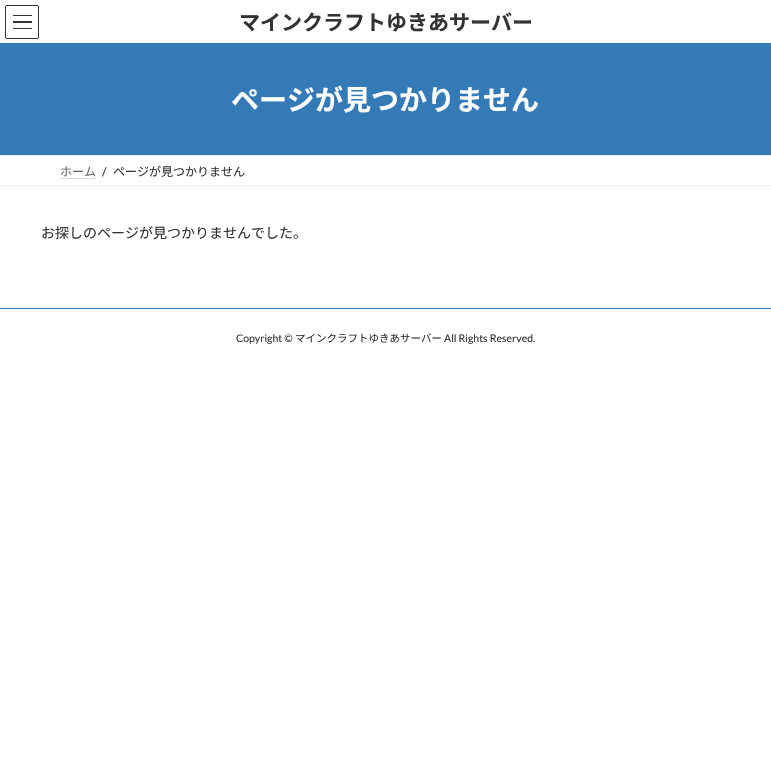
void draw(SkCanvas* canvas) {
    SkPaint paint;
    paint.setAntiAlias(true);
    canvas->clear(0xFFFFFFFF);
    paint.setColor(0xFF333333);
    canvas->drawRect(SkRect::MakeXYWH(13, 15, 19, 1), paint);
    canvas->drawRect(SkRect::MakeXYWH(13, 21, 19, 2), paint);
    canvas->drawRect(SkRect::MakeXYWH(13, 28, 19, 1), paint);
    paint.setStyle(SkPaint::kStroke_Style);
    paint.setStrokeWidth(1);
    canvas->drawRoundRect(SkRect::MakeXYWH(5.5f, 5.5f, 33, 33), 1.5f, 1.5f, paint);
    SkFont font1(fontMgr->matchFamilyStyle("Noto Sans JP", SkFontStyle::Bold()), 21);
    font1.setSubpixel(true);
    paint.setStyle(SkPaint::kFill_Style);
    canvas->drawString("マインクラフトゆきあサーバー", 239, 30, font1, paint);
    paint.setColor(0xFF337AB7);
    canvas->drawRect(SkRect::MakeXYWH(0, 43, 771, 112), paint);
    SkFont font2(fontMgr->matchFamilyStyle("Noto Sans JP", SkFontStyle::Bold()), 28);
    font2.setSubpixel(true);
    paint.setColor(0xFFFFFFFF);
    canvas->drawString("ページが見つかりません", 231, 110, font2, paint);
    paint.setColor(0xFFF0F0F0);
    canvas->drawRect(SkRect::MakeXYWH(0, 155, 771, 1), paint);
    canvas->drawRect(SkRect::MakeXYWH(0, 185, 771, 1), paint);
    SkFont font3(fontMgr->matchFamilyStyle("Noto Sans JP", SkFontStyle::Normal()), 12);
    font3.setSubpixel(true);
    paint.setColor(0xFF666666);
    canvas->drawString("ホーム", 60, 176, font3, paint);
    paint.setStyle(SkPaint::kStroke_Style);
    paint.setColor(0xFFB3B3B3);
    paint.setPathEffect(SkDashPathEffect::Make({{1, 1}}, 0));
    canvas->drawPath(SkPathBuilder().moveTo(60.5f, 178.5f).lineTo(96.5f, 178.5f).detach(), paint);
    paint.setPathEffect(nullptr);
    SkFont font4(fontMgr->matchFamilyStyle("Lato", SkFontStyle::Normal()), 12);
    font4.setSubpixel(true);
    paint.setStyle(SkPaint::kFill_Style);
    paint.setColor(0xFF333333);
    canvas->drawString("/", 102, 176, font4, paint);
    canvas->drawString("ページが見つかりません", 113, 176, font3, paint);
    SkFont font5(fontMgr->matchFamilyStyle("Noto Sans JP", SkFontStyle::Normal()), 14);
    font5.setSubpixel(true);
    canvas->drawString("お探しのページが見つかりませんでした。", 41, 238, font5, paint);
    paint.setColor(0xFF337AB7);
    canvas->drawRect(SkRect::MakeXYWH(0, 308, 771, 1), paint);
    SkFont font6(fontMgr->matchFamilyStyle("Lato", SkFontStyle::Normal()), 10.5f);
    font6.setSubpixel(true);
    paint.setColor(0xFF333333);
    canvas->drawString("Copyright ©", 236, 342, font6, paint);
    SkFont font7(fontMgr->matchFamilyStyle("Noto Sans JP", SkFontStyle::Normal()), 10.5f);
    font7.setSubpixel(true);
    canvas->drawString("マインクラフトゆきあサーバー", 295, 342, font7, paint);
    canvas->drawString("All Rights Reserved.", 444, 342, font6, paint);
}
